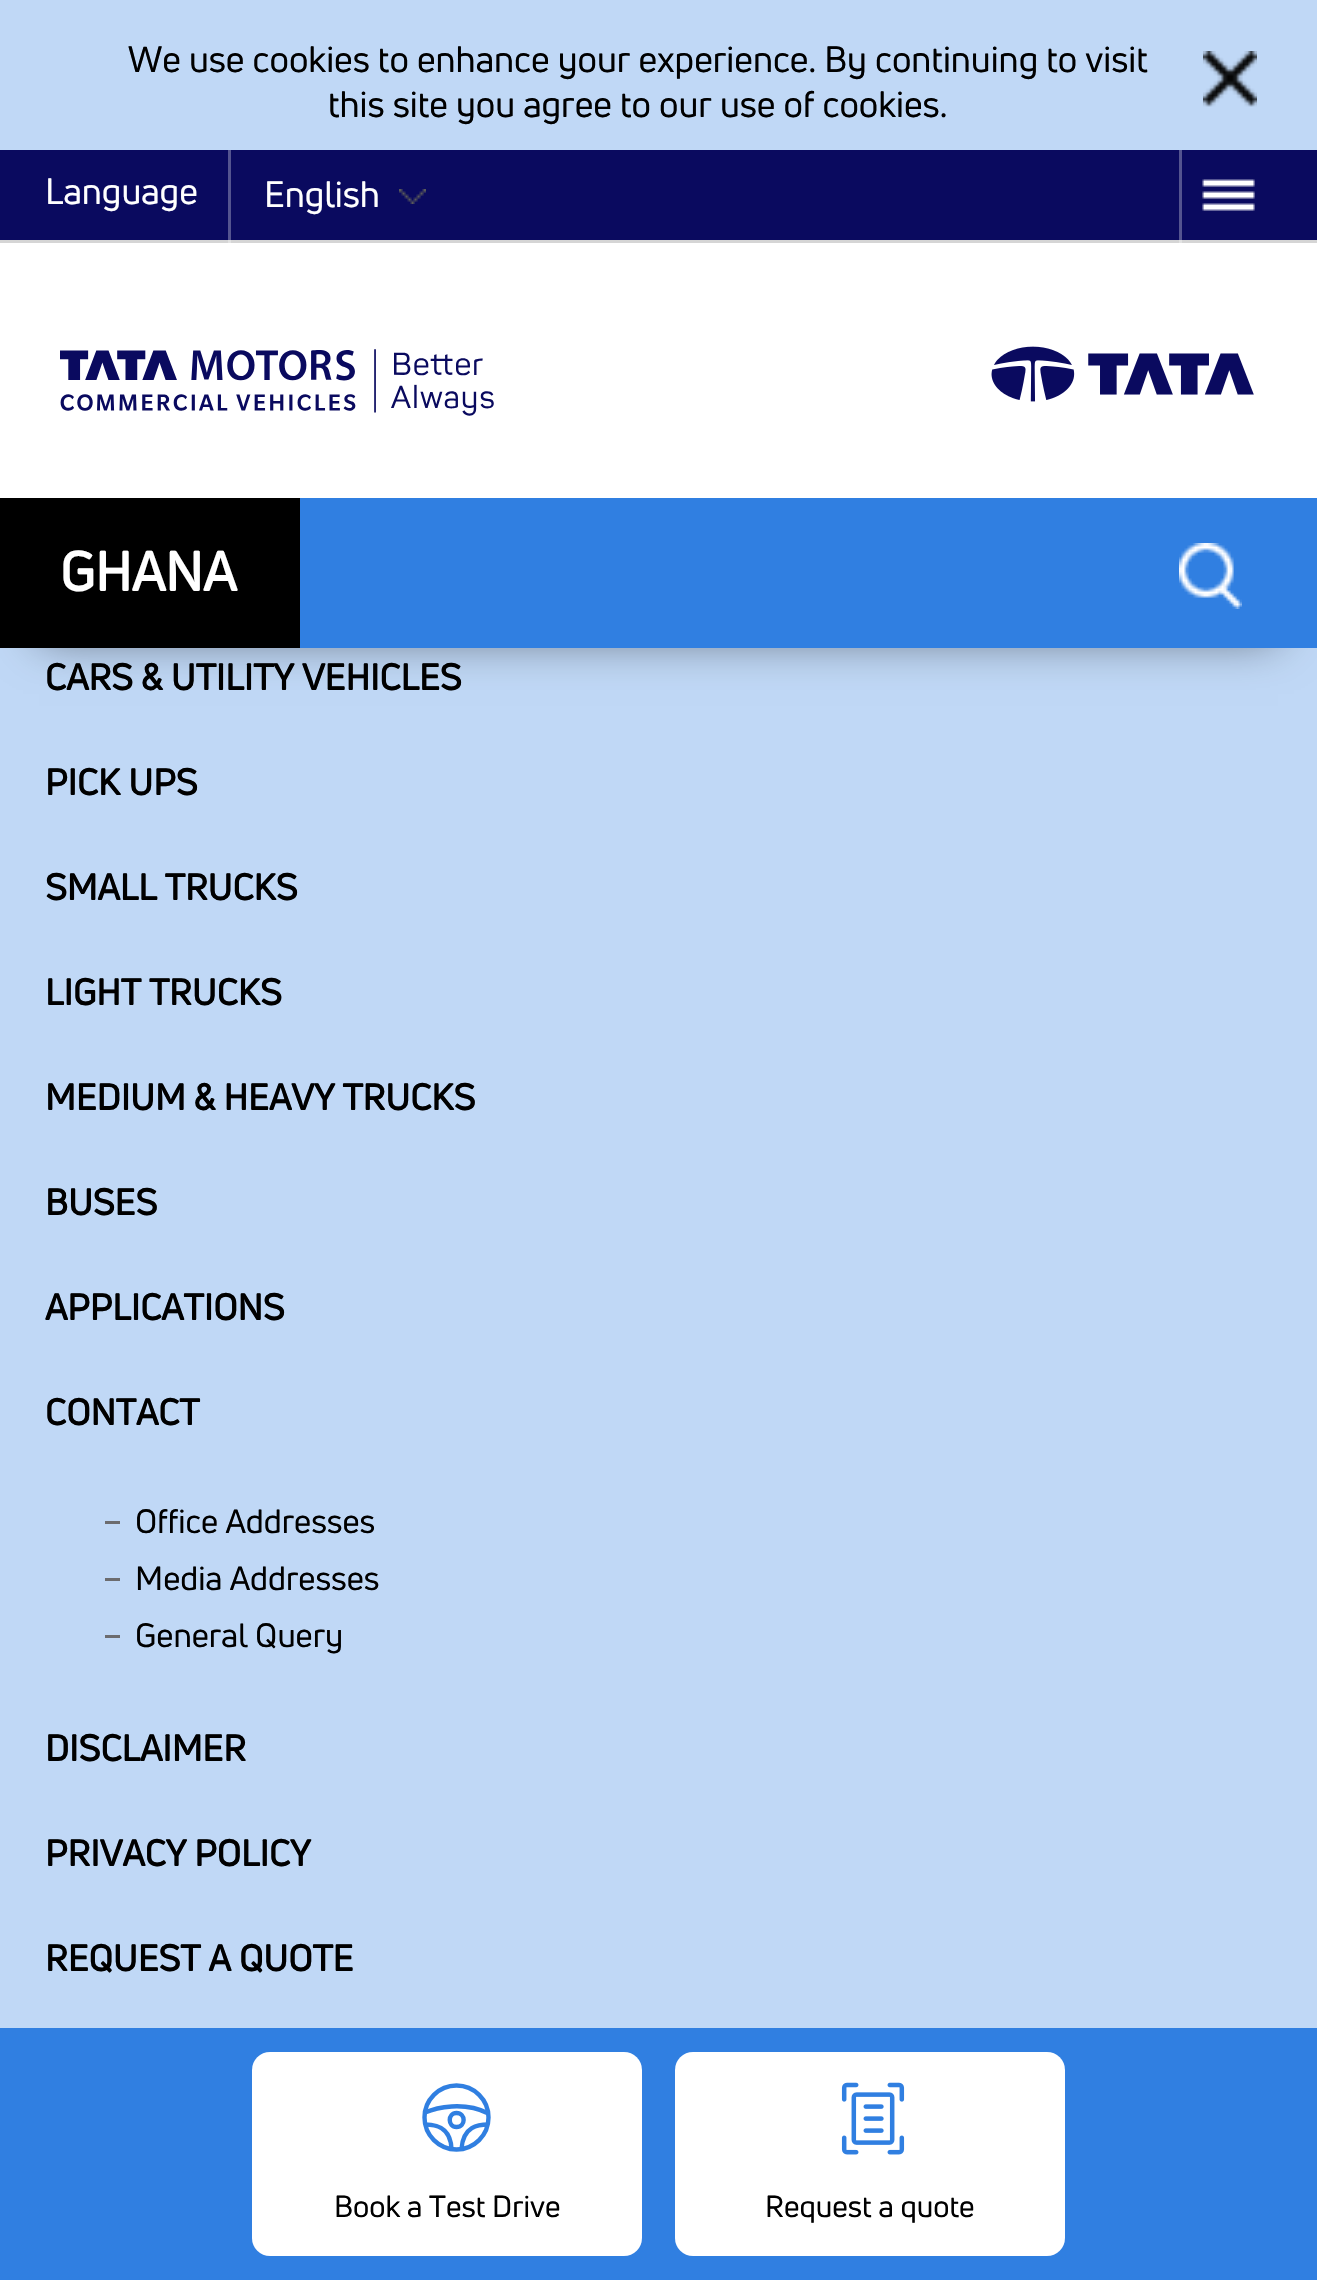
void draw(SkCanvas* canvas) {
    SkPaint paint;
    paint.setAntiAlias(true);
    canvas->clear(0xFFC0D8F6);
    SkFont font1(fontMgr->matchFamilyStyle("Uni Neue", SkFontStyle::Normal()), 36);
    font1.setSubpixel(true);
    paint.setColor(0xFF000000);
    canvas->drawString("We use cookies to enhance your experience. By continuing to visit", 128, 72, font1, paint);
    canvas->drawString("this site you agree to our use of cookies.", 328, 117, font1, paint);
    canvas->drawImageRect(SkImages::DeferredFromEncodedData(SkData::MakeFromFileName("img1.png")), SkRect::MakeXYWH(1203, 51, 54, 56), SkSamplingOptions());
    paint.setColor(0x80000000);
    paint.setMaskFilter(SkMaskFilter::MakeBlur(kNormal_SkBlurStyle, 22.5f));
    canvas->drawRect(SkRect::MakeXYWH(39, 219, 1239, 420), paint);
    paint.setMaskFilter(nullptr);
    paint.setColor(0xFFFFFFFF);
    canvas->drawRect(SkRect::MakeXYWH(0, 243, 1317, 255), paint);
    paint.setColor(0xFF0A0A5F);
    canvas->drawRect(SkRect::MakeXYWH(0, 150, 1317, 90), paint);
    paint.setColor(0xFF54548F);
    canvas->drawRect(SkRect::MakeXYWH(1179, 150, 3, 93), paint);
    canvas->drawRect(SkRect::MakeXYWH(228, 150, 3, 93), paint);
    paint.setColor(0xFFD5D5D5);
    canvas->drawRect(SkRect::MakeXYWH(0, 240, 1317, 3), paint);
    paint.setColor(0xFFE2E2E2);
    canvas->drawRect(SkRect::MakeXYWH(1179, 240, 3, 3), paint);
    canvas->drawRect(SkRect::MakeXYWH(228, 240, 3, 3), paint);
    paint.setColor(0xFFFFFFFF);
    canvas->drawString("Language", 45, 204, font1, paint);
    canvas->drawImageRect(SkImages::DeferredFromEncodedData(SkData::MakeFromFileName("img2.png")), SkRect::MakeXYWH(399, 189, 27, 15), SkSamplingOptions());
    canvas->drawString("English", 264, 207, font1, paint);
    canvas->drawImageRect(SkImages::DeferredFromEncodedData(SkData::MakeFromFileName("img3.png")), SkRect::MakeXYWH(1202, 179, 53, 32), SkSamplingOptions());
    canvas->drawImageRect(SkImages::DeferredFromEncodedData(SkData::MakeFromFileName("img4.png")), SkRect::MakeXYWH(60, 349, 434, 67), SkSamplingOptions());
    canvas->drawImageRect(SkImages::DeferredFromEncodedData(SkData::MakeFromFileName("img5.png")), SkRect::MakeXYWH(991, 346, 263, 56), SkSamplingOptions());
    paint.setColor(0xFF307FE1);
    canvas->drawRect(SkRect::MakeXYWH(300, 498, 1017, 150), paint);
    paint.setColor(0xFF000000);
    canvas->drawRect(SkRect::MakeXYWH(0, 498, 300, 150), paint);
    SkFont font2(fontMgr->matchFamilyStyle("Uni Neue", SkFontStyle::Bold()), 54);
    font2.setSubpixel(true);
    paint.setColor(0xFFFFFFFF);
    canvas->drawString("GHANA", 60, 591, font2, paint);
    canvas->drawImageRect(SkImages::DeferredFromEncodedData(SkData::MakeFromFileName("img6.png")), SkRect::MakeXYWH(1179, 543, 63, 66), SkSamplingOptions());
    SkFont font3(fontMgr->matchFamilyStyle("Uni Neue", SkFontStyle::Bold()), 36);
    font3.setSubpixel(true);
    paint.setColor(0xFF000000);
    canvas->drawString("CARS & UTILITY VEHICLES", 45, 690, font3, paint);
    canvas->drawString("PICK UPS", 45, 795, font3, paint);
    canvas->drawString("SMALL TRUCKS", 45, 900, font3, paint);
    canvas->drawString("LIGHT TRUCKS", 45, 1005, font3, paint);
    canvas->drawString("MEDIUM & HEAVY TRUCKS", 45, 1110, font3, paint);
    canvas->drawString("BUSES", 45, 1215, font3, paint);
    canvas->drawString("APPLICATIONS", 45, 1320, font3, paint);
    canvas->drawString("CONTACT", 45, 1425, font3, paint);
    paint.setColor(0xFF6C6C6F);
    canvas->drawRect(SkRect::MakeXYWH(105, 1521, 15, 3), paint);
    SkFont font4(fontMgr->matchFamilyStyle("Uni Neue", SkFontStyle::Normal()), 33);
    font4.setSubpixel(true);
    paint.setColor(0xFF000000);
    canvas->drawString("Office Addresses", 135, 1533, font4, paint);
    paint.setColor(0xFF6C6C6F);
    canvas->drawRect(SkRect::MakeXYWH(105, 1578, 15, 3), paint);
    paint.setColor(0xFF000000);
    canvas->drawString("Media Addresses", 135, 1590, font4, paint);
    paint.setColor(0xFF6C6C6F);
    canvas->drawRect(SkRect::MakeXYWH(105, 1635, 15, 3), paint);
    paint.setColor(0xFF000000);
    canvas->drawString("General Query", 135, 1647, font4, paint);
    canvas->drawString("DISCLAIMER", 45, 1761, font3, paint);
    canvas->drawString("PRIVACY POLICY", 45, 1866, font3, paint);
    canvas->drawString("REQUEST A QUOTE", 45, 1971, font3, paint);
    paint.setColor(0xFF307FE1);
    canvas->drawRect(SkRect::MakeXYWH(0, 2028, 1317, 252), paint);
    paint.setColor(0xFFFFFFFF);
    canvas->drawRoundRect(SkRect::MakeXYWH(252, 2052, 390, 204), 18, 18, paint);
    paint.setStyle(SkPaint::kStroke_Style);
    paint.setStrokeWidth(4.4f);
    paint.setColor(0xFF307FE1);
    canvas->drawCircle(456.5f, 2117.5f, 32, paint);
    canvas->drawPath(SkPathBuilder().moveTo(425, 2112.5f).cubicTo(436, 2107.5f, 464, 2101, 488.5f, 2113.5f).detach(), paint);
    canvas->drawPath(SkPathBuilder().moveTo(425, 2124.5f).cubicTo(434.5f, 2124.5f, 450.5f, 2126, 451.5f, 2149).detach(), paint);
    canvas->drawPath(SkPathBuilder().moveTo(488.5f, 2124.5f).cubicTo(478.5f, 2124.5f, 463, 2126, 461.5f, 2149).moveTo(456.5f, 2127).cubicTo(466, 2127, 466, 2113, 456.5f, 2113).cubicTo(447.5f, 2113, 447.5f, 2127, 456.5f, 2127).close().detach(), paint);
    SkFont font5(fontMgr->matchFamilyStyle("Uni Neue", SkFontStyle::Normal()), 30);
    font5.setSubpixel(true);
    paint.setStyle(SkPaint::kFill_Style);
    paint.setColor(0xFF000000);
    canvas->drawString("Book a Test Drive", 334, 2217, font5, paint);
    paint.setColor(0xFFFFFFFF);
    canvas->drawRoundRect(SkRect::MakeXYWH(675, 2052, 390, 204), 18, 18, paint);
    canvas->drawImageRect(SkImages::DeferredFromEncodedData(SkData::MakeFromFileName("img7.png")), SkRect::MakeXYWH(841, 2082, 64, 73), SkSamplingOptions());
    paint.setColor(0xFF000000);
    canvas->drawString("Request a quote", 765, 2217, font5, paint);
}
